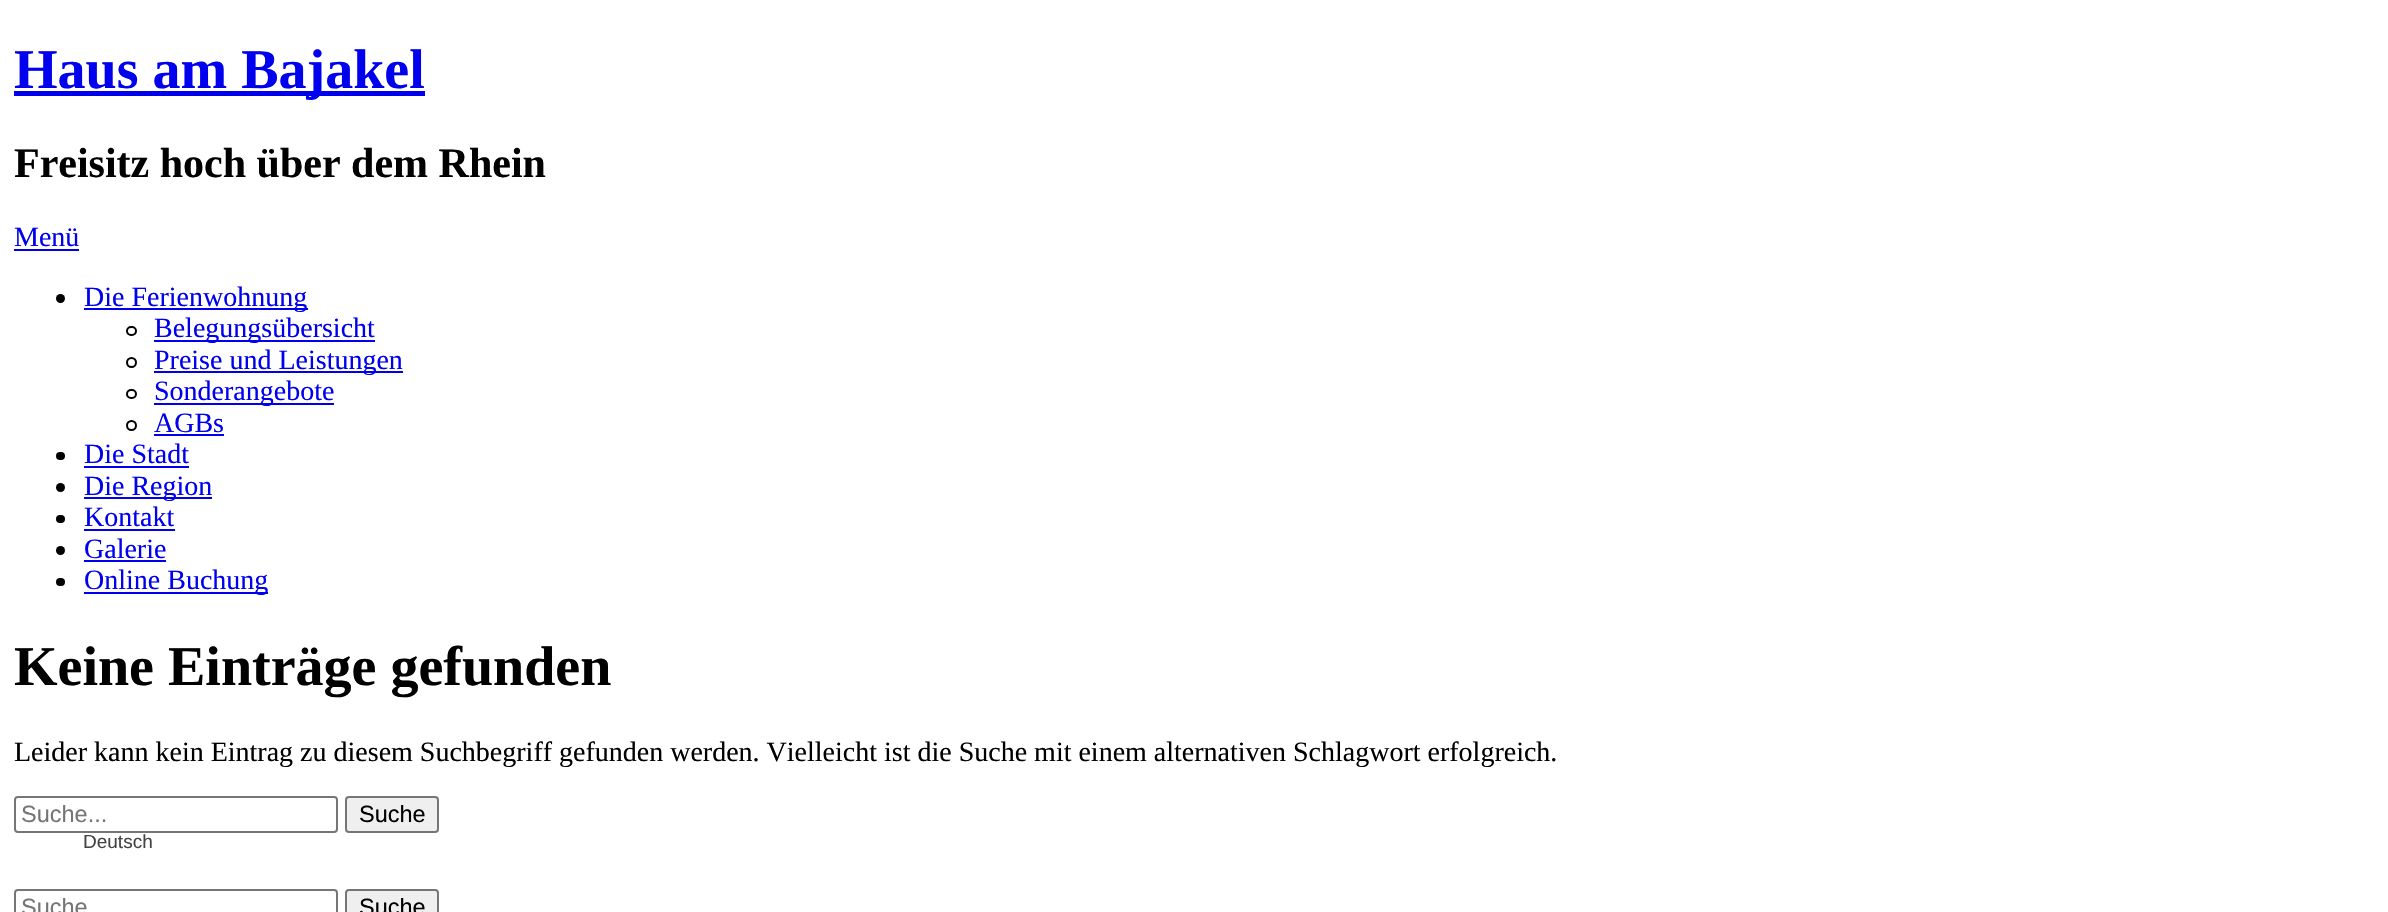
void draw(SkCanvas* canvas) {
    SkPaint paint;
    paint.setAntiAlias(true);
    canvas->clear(0xFFFFFFFF);
    paint.setColor(0xFF0000EE);
    canvas->drawRect(SkRect::MakeXYWH(14, 91, 411, 5), paint);
    SkFont font1(fontMgr->matchFamilyStyle("Liberation Serif", SkFontStyle::Bold()), 56);
    font1.setSubpixel(true);
    canvas->drawString("Haus am Bajakel", 14, 88, font1, paint);
    SkFont font2(fontMgr->matchFamilyStyle("Liberation Serif", SkFontStyle::Bold()), 42);
    font2.setSubpixel(true);
    paint.setColor(0xFF000000);
    canvas->drawString("Freisitz hoch über dem Rhein", 14, 177, font2, paint);
    SkFont font3(fontMgr->matchFamilyStyle("Liberation Serif", SkFontStyle::Normal()), 28);
    font3.setSubpixel(true);
    paint.setColor(0xFF0000EE);
    canvas->drawString("Menü", 14, 246, font3, paint);
    canvas->drawRect(SkRect::MakeXYWH(14, 249, 65, 2), paint);
    paint.setColor(0xFF000000);
    canvas->drawCircle(60.5f, 298.5f, 4.5f, paint);
    paint.setColor(0xFF0000EE);
    canvas->drawRect(SkRect::MakeXYWH(84, 308, 224, 2), paint);
    canvas->drawString("Die Ferienwohnung", 84, 306, font3, paint);
    paint.setStyle(SkPaint::kStroke_Style);
    paint.setStrokeWidth(2);
    paint.setColor(0xFF000000);
    canvas->drawRoundRect(SkRect::MakeXYWH(127, 327, 9, 8), 4, 4, paint);
    paint.setStyle(SkPaint::kFill_Style);
    paint.setColor(0xFF0000EE);
    canvas->drawRect(SkRect::MakeXYWH(154, 340, 221, 2), paint);
    canvas->drawString("Belegungsübersicht", 154, 337, font3, paint);
    paint.setStyle(SkPaint::kStroke_Style);
    paint.setColor(0xFF000000);
    canvas->drawCircle(131.5f, 362.5f, 4.5f, paint);
    paint.setStyle(SkPaint::kFill_Style);
    paint.setColor(0xFF0000EE);
    canvas->drawRect(SkRect::MakeXYWH(154, 371, 249, 2), paint);
    canvas->drawString("Preise und Leistungen", 154, 369, font3, paint);
    paint.setStyle(SkPaint::kStroke_Style);
    paint.setColor(0xFF000000);
    canvas->drawRoundRect(SkRect::MakeXYWH(127, 390, 9, 8), 4, 4, paint);
    paint.setStyle(SkPaint::kFill_Style);
    paint.setColor(0xFF0000EE);
    canvas->drawRect(SkRect::MakeXYWH(154, 403, 180, 2), paint);
    canvas->drawString("Sonderangebote", 154, 400, font3, paint);
    paint.setStyle(SkPaint::kStroke_Style);
    paint.setColor(0xFF000000);
    canvas->drawCircle(131.5f, 425.5f, 4.5f, paint);
    paint.setStyle(SkPaint::kFill_Style);
    paint.setColor(0xFF0000EE);
    canvas->drawString("AGBs", 154, 432, font3, paint);
    canvas->drawRect(SkRect::MakeXYWH(154, 434, 70, 2), paint);
    paint.setColor(0xFF000000);
    canvas->drawRoundRect(SkRect::MakeXYWH(56, 452, 9, 8), 4, 4, paint);
    paint.setColor(0xFF0000EE);
    canvas->drawString("Die Stadt", 84, 463, font3, paint);
    canvas->drawRect(SkRect::MakeXYWH(84, 466, 105, 2), paint);
    paint.setColor(0xFF000000);
    canvas->drawCircle(60.5f, 487.5f, 4.5f, paint);
    paint.setColor(0xFF0000EE);
    canvas->drawRect(SkRect::MakeXYWH(84, 497, 128, 2), paint);
    canvas->drawString("Die Region", 84, 495, font3, paint);
    paint.setColor(0xFF000000);
    canvas->drawRoundRect(SkRect::MakeXYWH(56, 515, 9, 8), 4, 4, paint);
    paint.setColor(0xFF0000EE);
    canvas->drawString("Kontakt", 84, 526, font3, paint);
    canvas->drawRect(SkRect::MakeXYWH(84, 529, 91, 2), paint);
    paint.setColor(0xFF000000);
    canvas->drawCircle(60.5f, 550.5f, 4.5f, paint);
    paint.setColor(0xFF0000EE);
    canvas->drawString("Galerie", 84, 558, font3, paint);
    canvas->drawRect(SkRect::MakeXYWH(84, 560, 82, 2), paint);
    paint.setColor(0xFF000000);
    canvas->drawRoundRect(SkRect::MakeXYWH(56, 578, 9, 8), 4, 4, paint);
    paint.setColor(0xFF0000EE);
    canvas->drawRect(SkRect::MakeXYWH(84, 592, 184, 2), paint);
    canvas->drawString("Online Buchung", 84, 589, font3, paint);
    paint.setColor(0xFF000000);
    canvas->drawString("Keine Einträge gefunden", 14, 685, font1, paint);
    canvas->drawString("Leider kann kein Eintrag zu diesem Suchbegriff gefunden werden. Vielleicht ist die Suche mit einem alternativen Schlagwort erfolgreich.", 14, 761, font3, paint);
    paint.setStyle(SkPaint::kStroke_Style);
    paint.setColor(0xFF767676);
    canvas->drawRoundRect(SkRect::MakeXYWH(15, 797, 322, 35), 3, 3, paint);
    SkFont font4(fontMgr->matchFamilyStyle("Liberation Sans", SkFontStyle::Normal()), 23.5f);
    font4.setSubpixel(true);
    paint.setStyle(SkPaint::kFill_Style);
    paint.setColor(0xFF757575);
    canvas->drawString("Suche...", 21, 822, font4, paint);
    paint.setColor(0xFFEFEFEF);
    canvas->drawRoundRect(SkRect::MakeXYWH(346, 797, 92, 35), 3, 3, paint);
    paint.setStyle(SkPaint::kStroke_Style);
    paint.setColor(0xFF767676);
    canvas->drawRoundRect(SkRect::MakeXYWH(346, 797, 92, 35), 3, 3, paint);
    paint.setStyle(SkPaint::kFill_Style);
    paint.setColor(0xFF000000);
    canvas->drawString("Suche", 359, 822, font4, paint);
    SkFont font5(fontMgr->matchFamilyStyle("Liberation Sans", SkFontStyle::Normal()), 19);
    font5.setSubpixel(true);
    paint.setColor(0xFF444444);
    canvas->drawString("Deutsch", 83, 848, font5, paint);
    paint.setStyle(SkPaint::kStroke_Style);
    paint.setColor(0xFF767676);
    canvas->drawRoundRect(SkRect::MakeXYWH(15, 890, 322, 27), 3, 3, paint);
    paint.setStyle(SkPaint::kFill_Style);
    paint.setColor(0xFF757575);
    canvas->drawString("Suche", 21, 915, font4, paint);
    paint.setColor(0xFFEFEFEF);
    canvas->drawRoundRect(SkRect::MakeXYWH(346, 890, 92, 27), 3, 3, paint);
    paint.setStyle(SkPaint::kStroke_Style);
    paint.setColor(0xFF767676);
    canvas->drawRoundRect(SkRect::MakeXYWH(346, 890, 92, 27), 3, 3, paint);
    paint.setStyle(SkPaint::kFill_Style);
    paint.setColor(0xFF000000);
    canvas->drawString("Suche", 359, 915, font4, paint);
}
